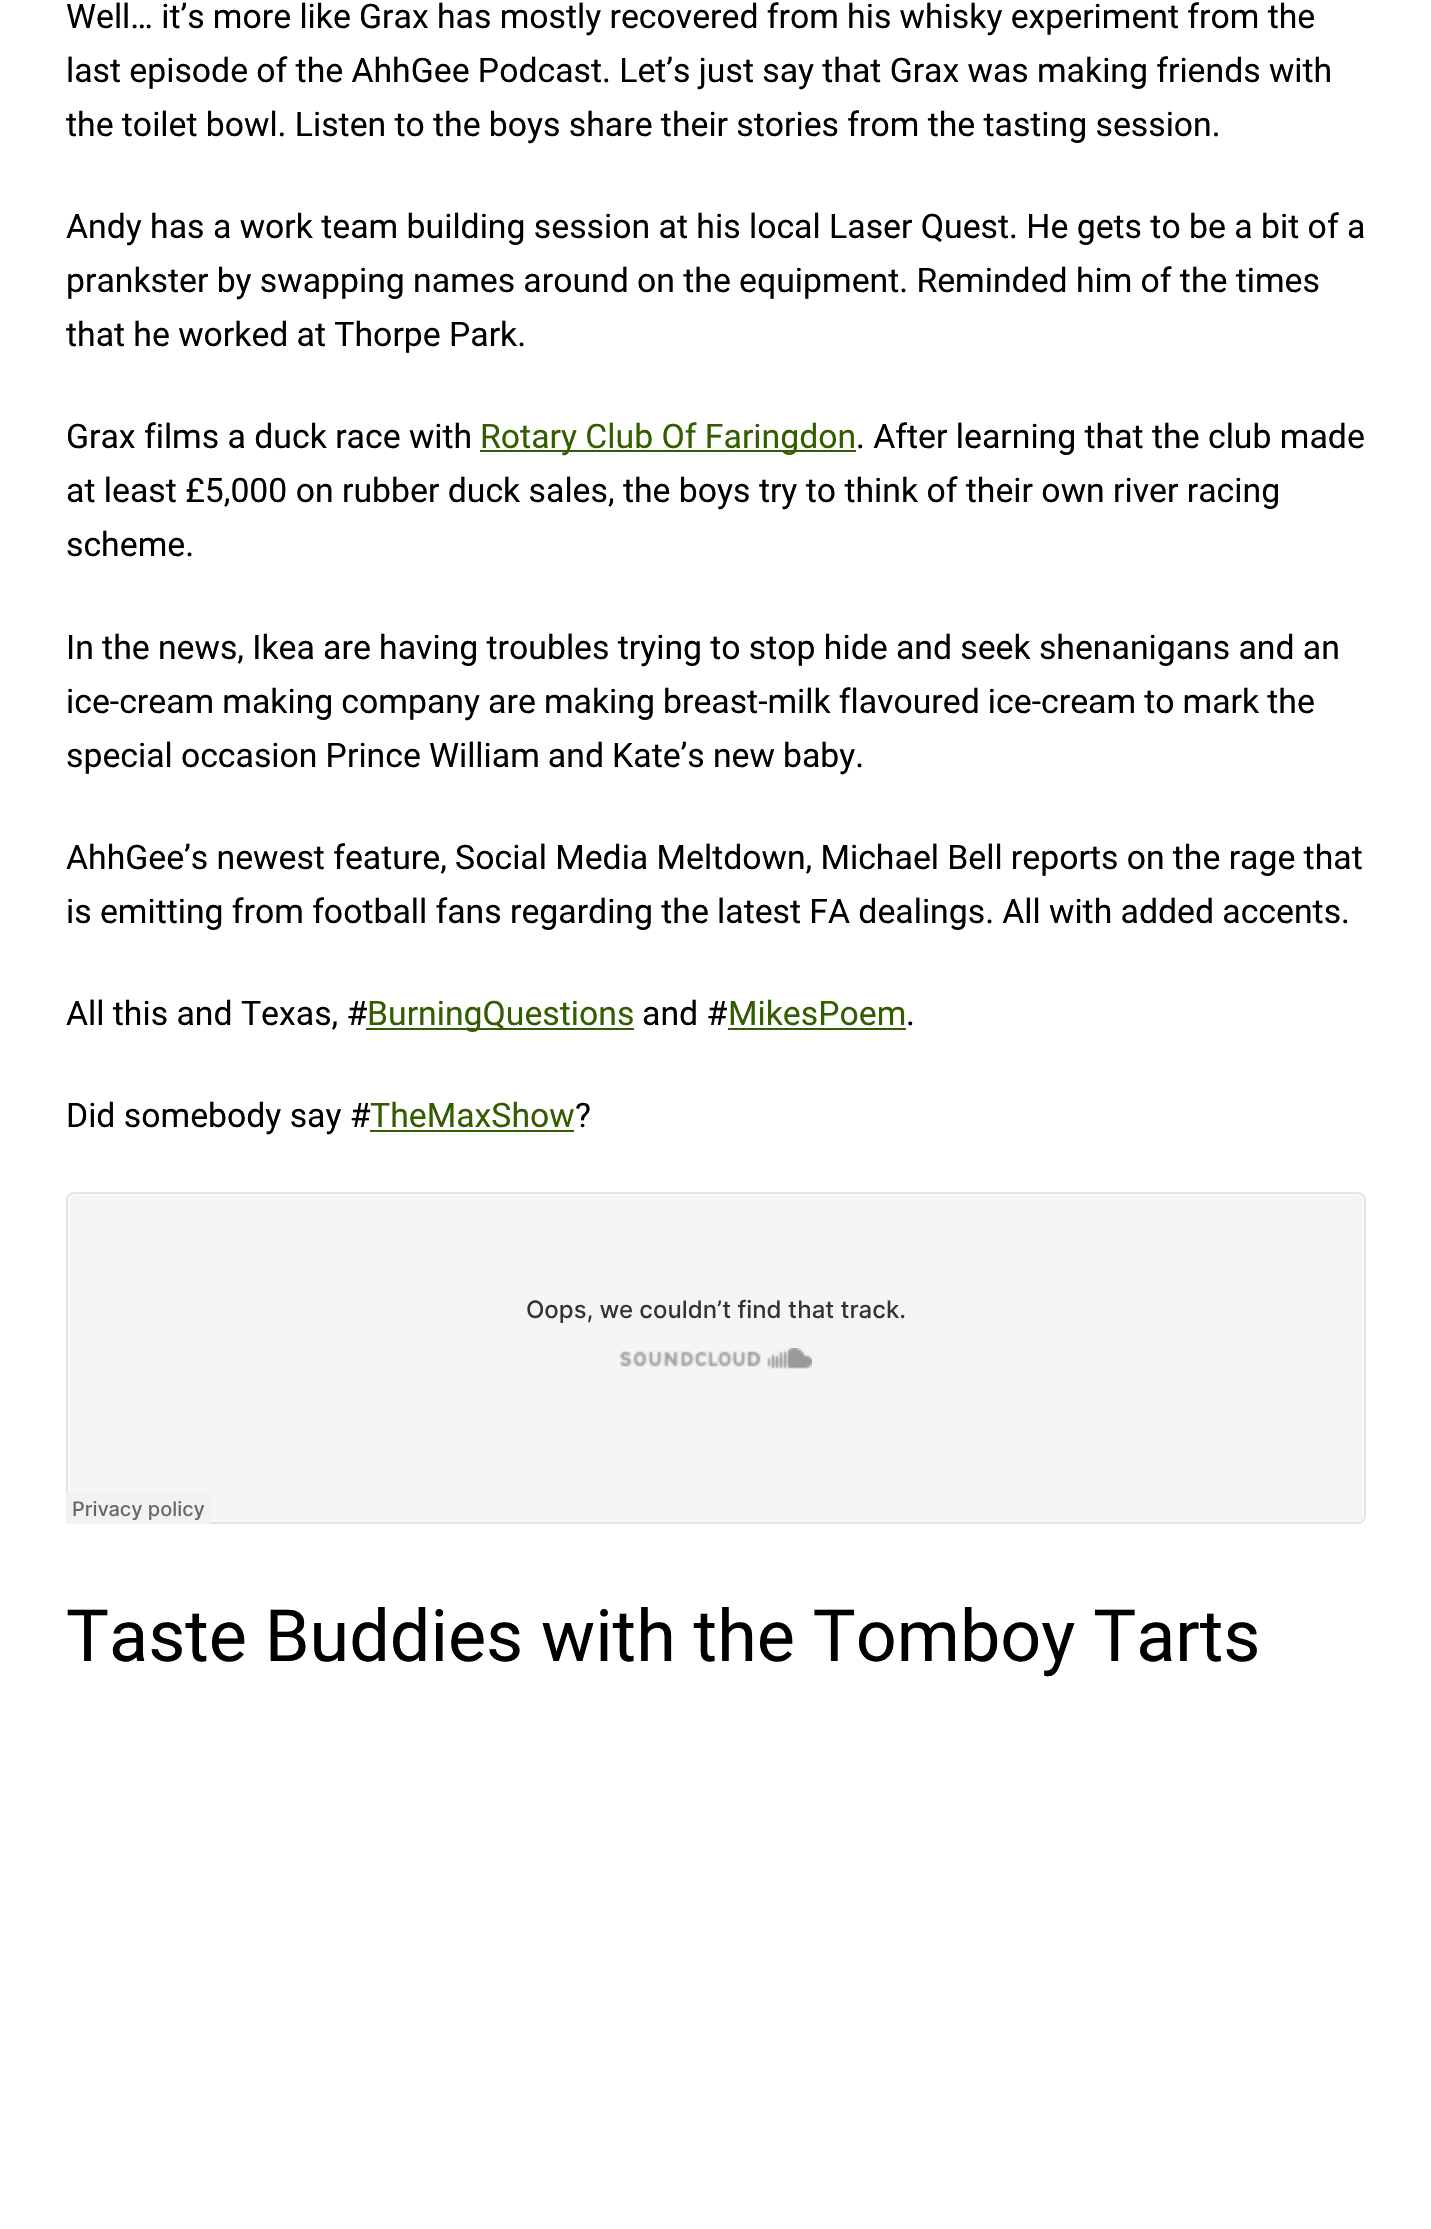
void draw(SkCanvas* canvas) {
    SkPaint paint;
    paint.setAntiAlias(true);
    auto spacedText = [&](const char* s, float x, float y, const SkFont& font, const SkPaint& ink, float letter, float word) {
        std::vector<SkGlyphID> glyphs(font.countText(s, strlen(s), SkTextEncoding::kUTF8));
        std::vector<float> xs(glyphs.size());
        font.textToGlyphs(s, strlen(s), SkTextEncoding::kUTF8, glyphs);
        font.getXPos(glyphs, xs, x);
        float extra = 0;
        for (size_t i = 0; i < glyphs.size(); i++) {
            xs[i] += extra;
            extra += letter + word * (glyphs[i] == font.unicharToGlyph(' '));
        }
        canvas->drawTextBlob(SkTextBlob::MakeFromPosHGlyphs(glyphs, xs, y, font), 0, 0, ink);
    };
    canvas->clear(0xFFFFFFFF);
    SkFont font1(fontMgr->matchFamilyStyle("Roboto", SkFontStyle::Normal()), 33.8f);
    font1.setSubpixel(true);
    paint.setColor(0xFF000000);
    spacedText("Well… it’s more like Grax has mostly recovered from his whisky experiment from the", 66, 28, font1, paint, 0, -0.1f);
    spacedText("last episode of the AhhGee Podcast. Let’s just say that Grax was making friends with", 66, 82, font1, paint, 0, -0.1f);
    spacedText("the toilet bowl. Listen to the boys share their stories from the tasting session.", 66, 136, font1, paint, 0, -0.1f);
    canvas->drawString("Andy has a work team building session at his local Laser Quest. He gets to be a bit of a", 66, 238, font1, paint);
    spacedText("prankster by swapping names around on the equipment. Reminded him of the times", 66, 292, font1, paint, 0, -0.1f);
    spacedText("that he worked at Thorpe Park.", 66, 346, font1, paint, 0, -0.1f);
    canvas->drawString("Grax films a duck race with", 66, 448, font1, paint);
    paint.setColor(0xFF345C00);
    canvas->drawRect(SkRect::MakeXYWH(480, 450, 376, 2), paint);
    canvas->drawString("Rotary Club Of Faringdon", 480, 448, font1, paint);
    paint.setColor(0xFF000000);
    canvas->drawString(". After learning that the club made", 856, 448, font1, paint);
    canvas->drawString("at least £5,000 on rubber duck sales, the boys try to think of their own river racing", 66, 502, font1, paint);
    canvas->drawString("scheme.", 66, 556, font1, paint);
    spacedText("In the news, Ikea are having troubles trying to stop hide and seek shenanigans and an", 66, 659, font1, paint, 0, -0.1f);
    spacedText("ice-cream making company are making breast-milk flavoured ice-cream to mark the", 66, 713, font1, paint, 0, -0.25f);
    spacedText("special occasion Prince William and Kate’s new baby.", 66, 767, font1, paint, 0, -0.25f);
    spacedText("AhhGee’s newest feature, Social Media Meltdown, Michael Bell reports on the rage that", 66, 869, font1, paint, 0, -0.1f);
    spacedText("is emitting from football fans regarding the latest FA dealings. All with added accents.", 66, 923, font1, paint, 0, -0.1f);
    canvas->drawString("All this and Texas, #", 66, 1025, font1, paint);
    paint.setColor(0xFF345C00);
    canvas->drawRect(SkRect::MakeXYWH(366, 1028, 268, 2), paint);
    canvas->drawString("BurningQuestions", 367, 1025, font1, paint);
    paint.setColor(0xFF000000);
    canvas->drawString("and #", 642, 1025, font1, paint);
    paint.setColor(0xFF345C00);
    canvas->drawString("MikesPoem", 728, 1025, font1, paint);
    canvas->drawRect(SkRect::MakeXYWH(728, 1028, 178, 2), paint);
    paint.setColor(0xFF000000);
    canvas->drawString(".", 906, 1025, font1, paint);
    canvas->drawString("Did somebody say #", 66, 1127, font1, paint);
    paint.setColor(0xFF345C00);
    canvas->drawString("TheMaxShow", 370, 1127, font1, paint);
    canvas->drawRect(SkRect::MakeXYWH(370, 1130, 204, 2), paint);
    paint.setColor(0xFF000000);
    canvas->drawString("?", 575, 1127, font1, paint);
    canvas->drawImageRect(SkImages::DeferredFromEncodedData(SkData::MakeFromFileName("img1.png")), SkRect::MakeXYWH(66, 1192, 1300, 332), SkSamplingOptions());
    SkFont font2(fontMgr->matchFamilyStyle("Roboto", SkFontStyle::Normal()), 72);
    font2.setSubpixel(true);
    canvas->drawString("Taste Buddies with the Tomboy Tarts", 66, 1661, font2, paint);
}
